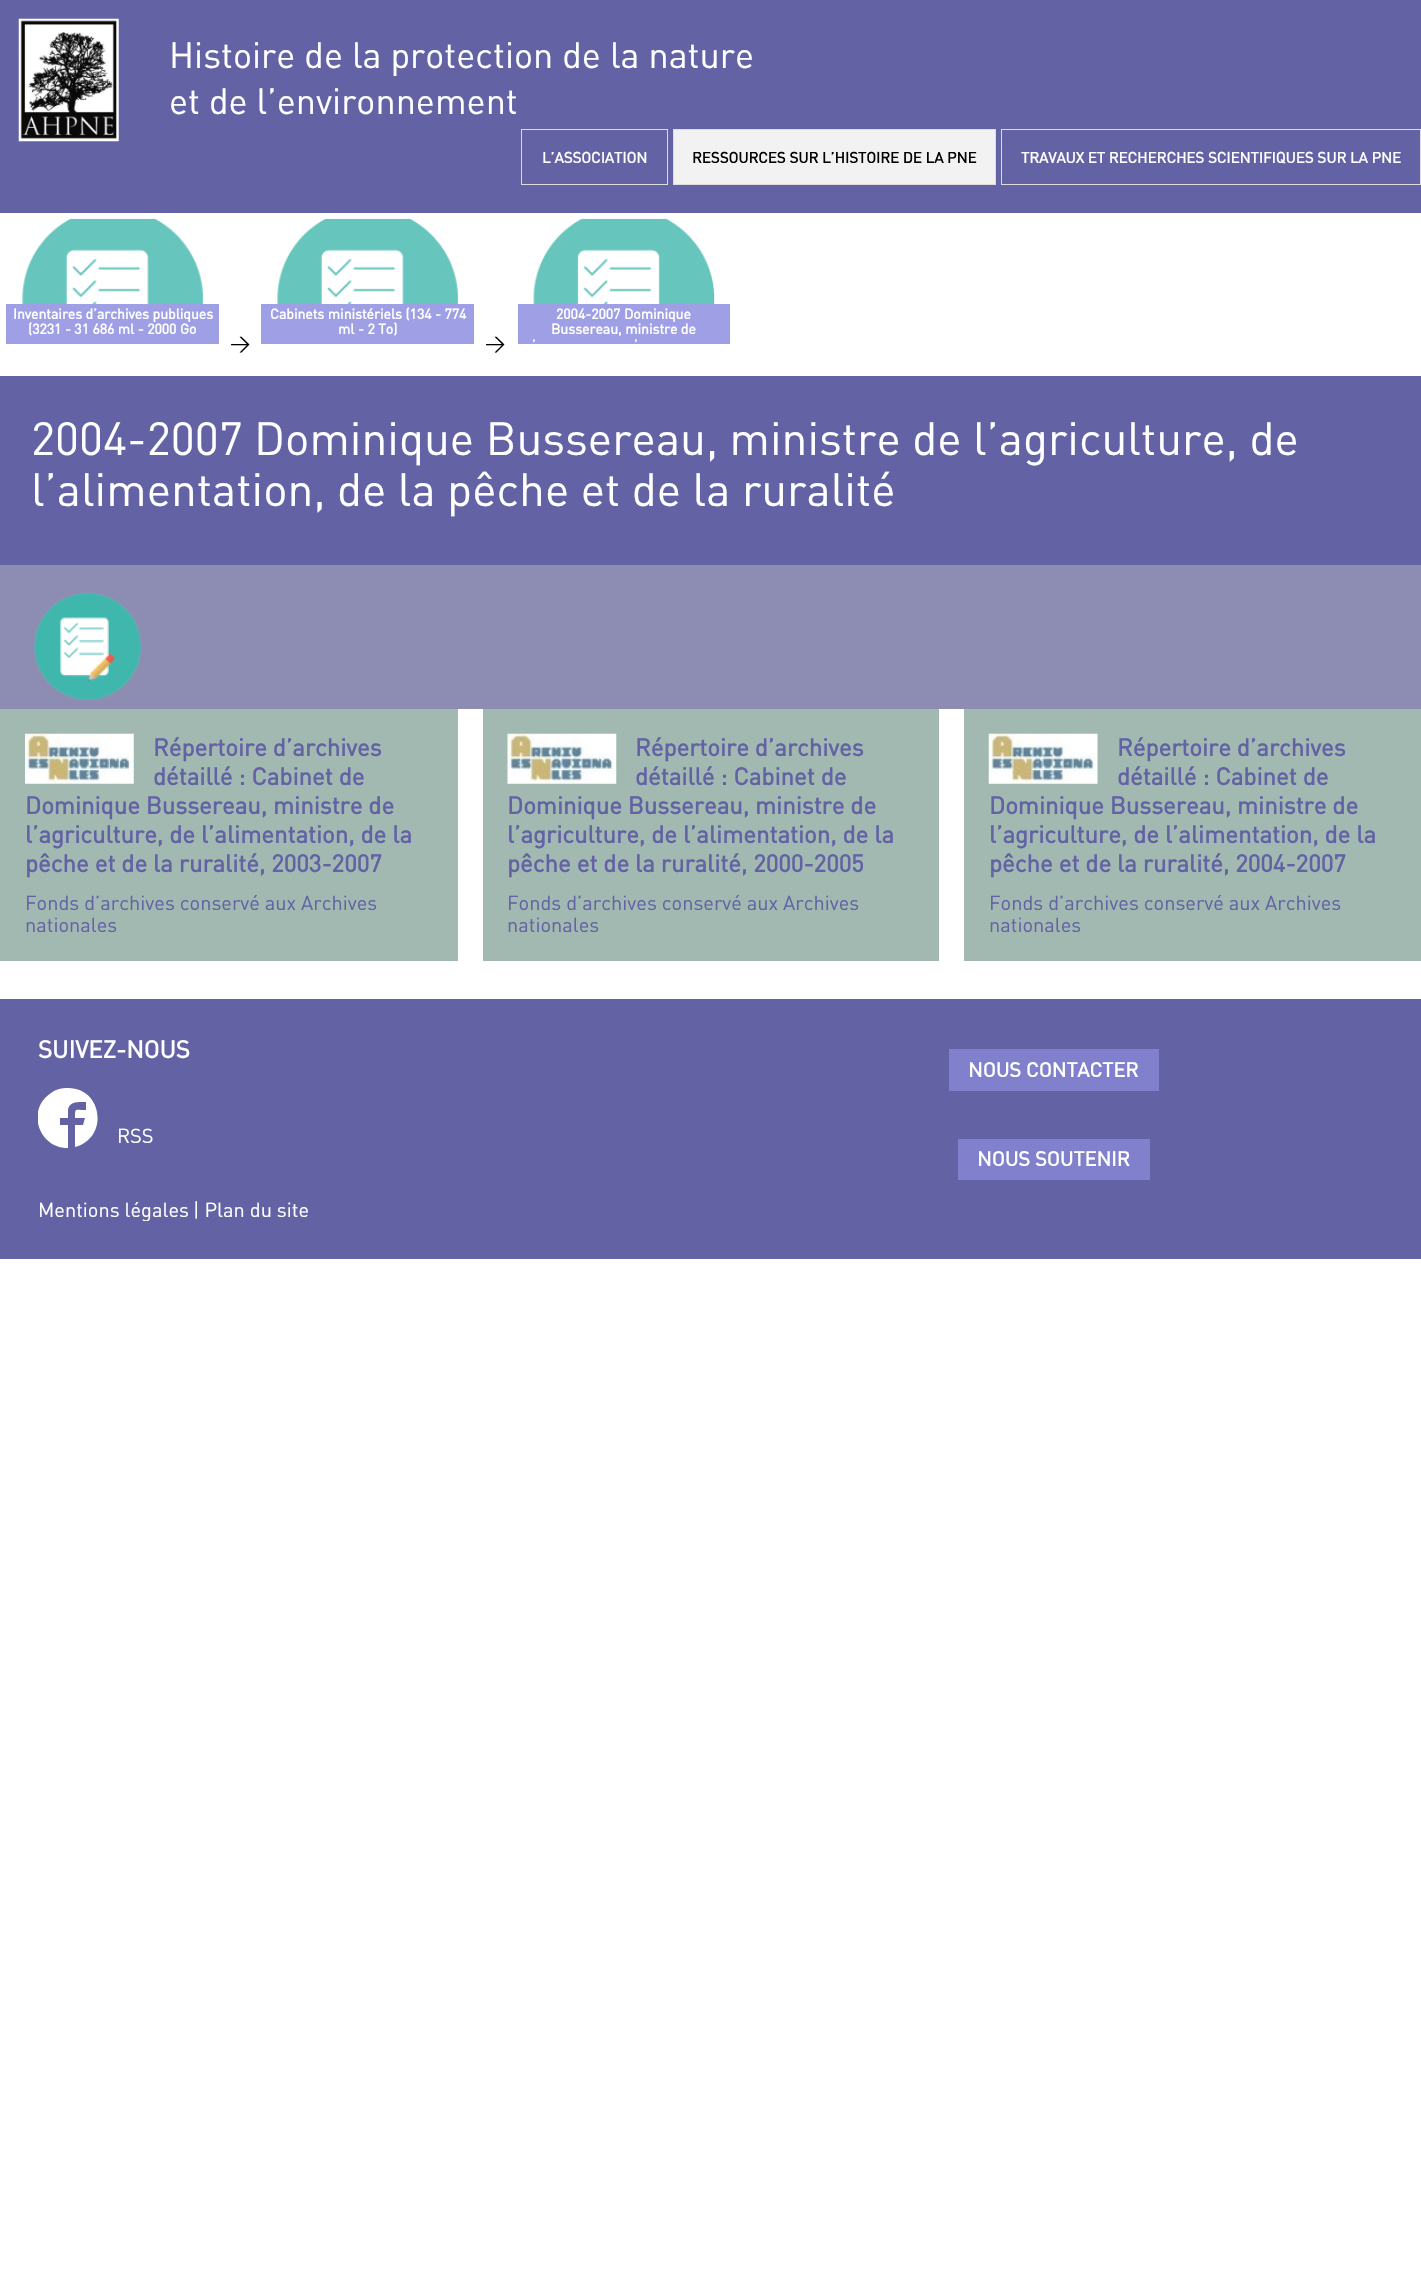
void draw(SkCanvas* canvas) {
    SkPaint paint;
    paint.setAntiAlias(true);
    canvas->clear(0xFFFFFFFF);
    paint.setColor(0xFF6262A4);
    canvas->drawRect(SkRect::MakeXYWH(0, 0, 1421, 213), paint);
    canvas->drawImageRect(SkImages::DeferredFromEncodedData(SkData::MakeFromFileName("img1.png")), SkRect::MakeXYWH(18, 18, 101, 124), SkSamplingOptions());
    SkFont font1(fontMgr->matchFamilyStyle("DIN", SkFontStyle::Normal()), 36);
    font1.setSubpixel(true);
    paint.setColor(0xFFFFFFFF);
    canvas->drawString("Histoire de la protection de la nature", 169, 68, font1, paint);
    canvas->drawString("et de l’environnement", 169, 114, font1, paint);
    paint.setStyle(SkPaint::kStroke_Style);
    paint.setStrokeWidth(1);
    paint.setColor(0xFFDDDDDD);
    canvas->drawRect(SkRect::MakeXYWH(521.5f, 129.5f, 146, 55), paint);
    SkFont font2(fontMgr->matchFamilyStyle("DIN", SkFontStyle::Bold()), 15);
    font2.setSubpixel(true);
    paint.setStyle(SkPaint::kFill_Style);
    paint.setColor(0xFFFFFFFF);
    canvas->drawString("L’ASSOCIATION", 542, 163, font2, paint);
    paint.setColor(0xFFF2F2F2);
    canvas->drawRect(SkRect::MakeXYWH(673.5f, 129.5f, 322, 55), paint);
    paint.setStyle(SkPaint::kStroke_Style);
    paint.setColor(0xFFDDDDDD);
    canvas->drawRect(SkRect::MakeXYWH(673.5f, 129.5f, 322, 55), paint);
    paint.setStyle(SkPaint::kFill_Style);
    paint.setColor(0xFF000000);
    canvas->drawString("RESSOURCES SUR L’HISTOIRE DE LA PNE", 692, 163, font2, paint);
    paint.setStyle(SkPaint::kStroke_Style);
    paint.setColor(0xFFDDDDDD);
    canvas->drawRect(SkRect::MakeXYWH(1001.5f, 129.5f, 419, 55), paint);
    paint.setStyle(SkPaint::kFill_Style);
    paint.setColor(0xFFFFFFFF);
    canvas->drawString("TRAVAUX ET RECHERCHES SCIENTIFIQUES SUR LA PNE", 1021, 163, font2, paint);
    canvas->drawImageRect(SkImages::DeferredFromEncodedData(SkData::MakeFromFileName("img2.png")), SkRect::MakeXYWH(22, 218, 182, 86), SkSamplingOptions());
    paint.setColor(0xFF9F9FE6);
    canvas->drawRect(SkRect::MakeXYWH(6, 304, 213, 40), paint);
    SkFont font3(fontMgr->matchFamilyStyle("DIN", SkFontStyle::Bold()), 14);
    font3.setSubpixel(true);
    paint.setColor(0xFFFFFFFF);
    canvas->drawString("Inventaires d’archives publiques", 13, 319, font3, paint);
    canvas->drawString("(3231 - 31 686 ml - 2000 Go", 28, 334, font3, paint);
    canvas->drawImageRect(SkImages::DeferredFromEncodedData(SkData::MakeFromFileName("img2.png")), SkRect::MakeXYWH(277, 218, 182, 86), SkSamplingOptions());
    paint.setColor(0xFF9F9FE6);
    canvas->drawRect(SkRect::MakeXYWH(261, 304, 213, 40), paint);
    paint.setColor(0xFFFFFFFF);
    canvas->drawString("Cabinets ministériels (134 - 774", 270, 319, font3, paint);
    canvas->drawString("ml - 2 To)", 338, 334, font3, paint);
    canvas->drawImageRect(SkImages::DeferredFromEncodedData(SkData::MakeFromFileName("img3.png")), SkRect::MakeXYWH(533, 218, 182, 86), SkSamplingOptions());
    paint.setColor(0xFF9F9FE6);
    canvas->drawRect(SkRect::MakeXYWH(518, 304, 212, 40), paint);
    paint.setColor(0xFFFFFFFF);
    canvas->drawString("2004-2007 Dominique", 556, 319, font3, paint);
    canvas->drawString("Bussereau, ministre de", 551, 334, font3, paint);
    canvas->drawString("’", 532, 350, font3, paint);
    canvas->drawString("’", 634, 350, font3, paint);
    SkFont font4(fontMgr->matchFamilyStyle("DIN", SkFontStyle::Normal()), 20);
    font4.setSubpixel(true);
    paint.setColor(0xFF000000);
    canvas->drawString(">", 230, 350, font4, paint);
    canvas->drawString(">", 485, 350, font4, paint);
    paint.setColor(0xFF8D8DB3);
    canvas->drawRect(SkRect::MakeXYWH(0, 565, 1421, 144), paint);
    paint.setColor(0xFF6262A4);
    canvas->drawRect(SkRect::MakeXYWH(0, 376, 1421, 189), paint);
    SkFont font5(fontMgr->matchFamilyStyle("DIN", SkFontStyle::Normal()), 46);
    font5.setSubpixel(true);
    paint.setColor(0xFFFFFFFF);
    canvas->drawString("2004-2007 Dominique Bussereau, ministre de l’agriculture, de", 31, 455, font5, paint);
    canvas->drawString("l’alimentation, de la pêche et de la ruralité", 31, 506, font5, paint);
    canvas->drawImageRect(SkImages::DeferredFromEncodedData(SkData::MakeFromFileName("img4.png")), SkRect::MakeXYWH(33, 592, 109, 109), SkSamplingOptions());
    paint.setColor(0xFFA2B9B2);
    canvas->drawRect(SkRect::MakeXYWH(0, 709, 458, 252), paint);
    canvas->drawImageRect(SkImages::DeferredFromEncodedData(SkData::MakeFromFileName("img5.png")), SkRect::MakeXYWH(25, 733, 109, 51), SkSamplingOptions());
    SkFont font6(fontMgr->matchFamilyStyle("DIN", SkFontStyle::Bold()), 24);
    font6.setSubpixel(true);
    paint.setColor(0xFF6262A4);
    canvas->drawString("Répertoire d’archives", 153, 756, font6, paint);
    canvas->drawString("détaillé : Cabinet de", 153, 785, font6, paint);
    canvas->drawString("Dominique Bussereau, ministre de", 25, 814, font6, paint);
    canvas->drawString("l’agriculture, de l’alimentation, de la", 25, 843, font6, paint);
    canvas->drawString("pêche et de la ruralité, 2003-2007", 25, 872, font6, paint);
    canvas->drawString("Fonds d’archives conservé aux Archives", 25, 910, font4, paint);
    canvas->drawString("nationales", 25, 932, font4, paint);
    paint.setColor(0xFFA2B9B2);
    canvas->drawRect(SkRect::MakeXYWH(483, 709, 456, 252), paint);
    canvas->drawImageRect(SkImages::DeferredFromEncodedData(SkData::MakeFromFileName("img6.png")), SkRect::MakeXYWH(507, 733, 110, 51), SkSamplingOptions());
    paint.setColor(0xFF6262A4);
    canvas->drawString("Répertoire d’archives", 635, 756, font6, paint);
    canvas->drawString("détaillé : Cabinet de", 635, 785, font6, paint);
    canvas->drawString("Dominique Bussereau, ministre de", 507, 814, font6, paint);
    canvas->drawString("l’agriculture, de l’alimentation, de la", 507, 843, font6, paint);
    canvas->drawString("pêche et de la ruralité, 2000-2005", 507, 872, font6, paint);
    canvas->drawString("Fonds d’archives conservé aux Archives", 507, 910, font4, paint);
    canvas->drawString("nationales", 507, 932, font4, paint);
    paint.setColor(0xFFA2B9B2);
    canvas->drawRect(SkRect::MakeXYWH(964, 709, 457, 252), paint);
    canvas->drawImageRect(SkImages::DeferredFromEncodedData(SkData::MakeFromFileName("img7.png")), SkRect::MakeXYWH(988, 733, 110, 51), SkSamplingOptions());
    paint.setColor(0xFF6262A4);
    canvas->drawString("Répertoire d’archives", 1117, 756, font6, paint);
    canvas->drawString("détaillé : Cabinet de", 1117, 785, font6, paint);
    canvas->drawString("Dominique Bussereau, ministre de", 989, 814, font6, paint);
    canvas->drawString("l’agriculture, de l’alimentation, de la", 989, 843, font6, paint);
    canvas->drawString("pêche et de la ruralité, 2004-2007", 989, 872, font6, paint);
    canvas->drawString("Fonds d’archives conservé aux Archives", 989, 910, font4, paint);
    canvas->drawString("nationales", 989, 932, font4, paint);
    canvas->drawRect(SkRect::MakeXYWH(0, 999, 1421, 260), paint);
    paint.setColor(0xFFFFFFFF);
    canvas->drawString("SUIVEZ-NOUS", 38, 1058, font6, paint);
    canvas->save();
    canvas->clipRect(SkRect::MakeXYWH(38, 1036, 1346, 185));
    canvas->drawPath(SkPathBuilder().moveTo(68, 1088).cubicTo(62, 1088, 56, 1089, 51, 1093).cubicTo(26, 1109, 38, 1148, 68, 1148).lineTo(68, 1125).lineTo(60, 1125).lineTo(60, 1118).lineTo(68, 1118).lineTo(68, 1110).cubicTo(69, 1101, 79, 1102, 86, 1102).lineTo(86, 1110).cubicTo(75, 1110, 75, 1107, 75, 1118).lineTo(85, 1118).lineTo(83, 1125).lineTo(75, 1125).lineTo(75, 1147).cubicTo(109, 1138, 103, 1088, 68, 1088).close().detach(), paint);
    canvas->restore();
    canvas->drawString("RSS", 117, 1143, font4, paint);
    canvas->save();
    canvas->clipRect(SkRect::MakeXYWH(38, 1036, 1346, 185));
    canvas->drawString("Mentions légales", 38, 1217, font4, paint);
    canvas->restore();
    canvas->drawString("| Plan du site", 193, 1217, font4, paint);
    paint.setColor(0xFF8080CC);
    canvas->drawRect(SkRect::MakeXYWH(949, 1049, 210, 42), paint);
    SkFont font7(fontMgr->matchFamilyStyle("DIN", SkFontStyle::Bold()), 20);
    font7.setSubpixel(true);
    paint.setColor(0xFFFFFFFF);
    canvas->drawString("NOUS CONTACTER", 968, 1077, font7, paint);
    paint.setColor(0xFF8080CC);
    canvas->drawRect(SkRect::MakeXYWH(958, 1139, 192, 41), paint);
    paint.setColor(0xFFFFFFFF);
    canvas->drawString("NOUS SOUTENIR", 977, 1166, font7, paint);
}
